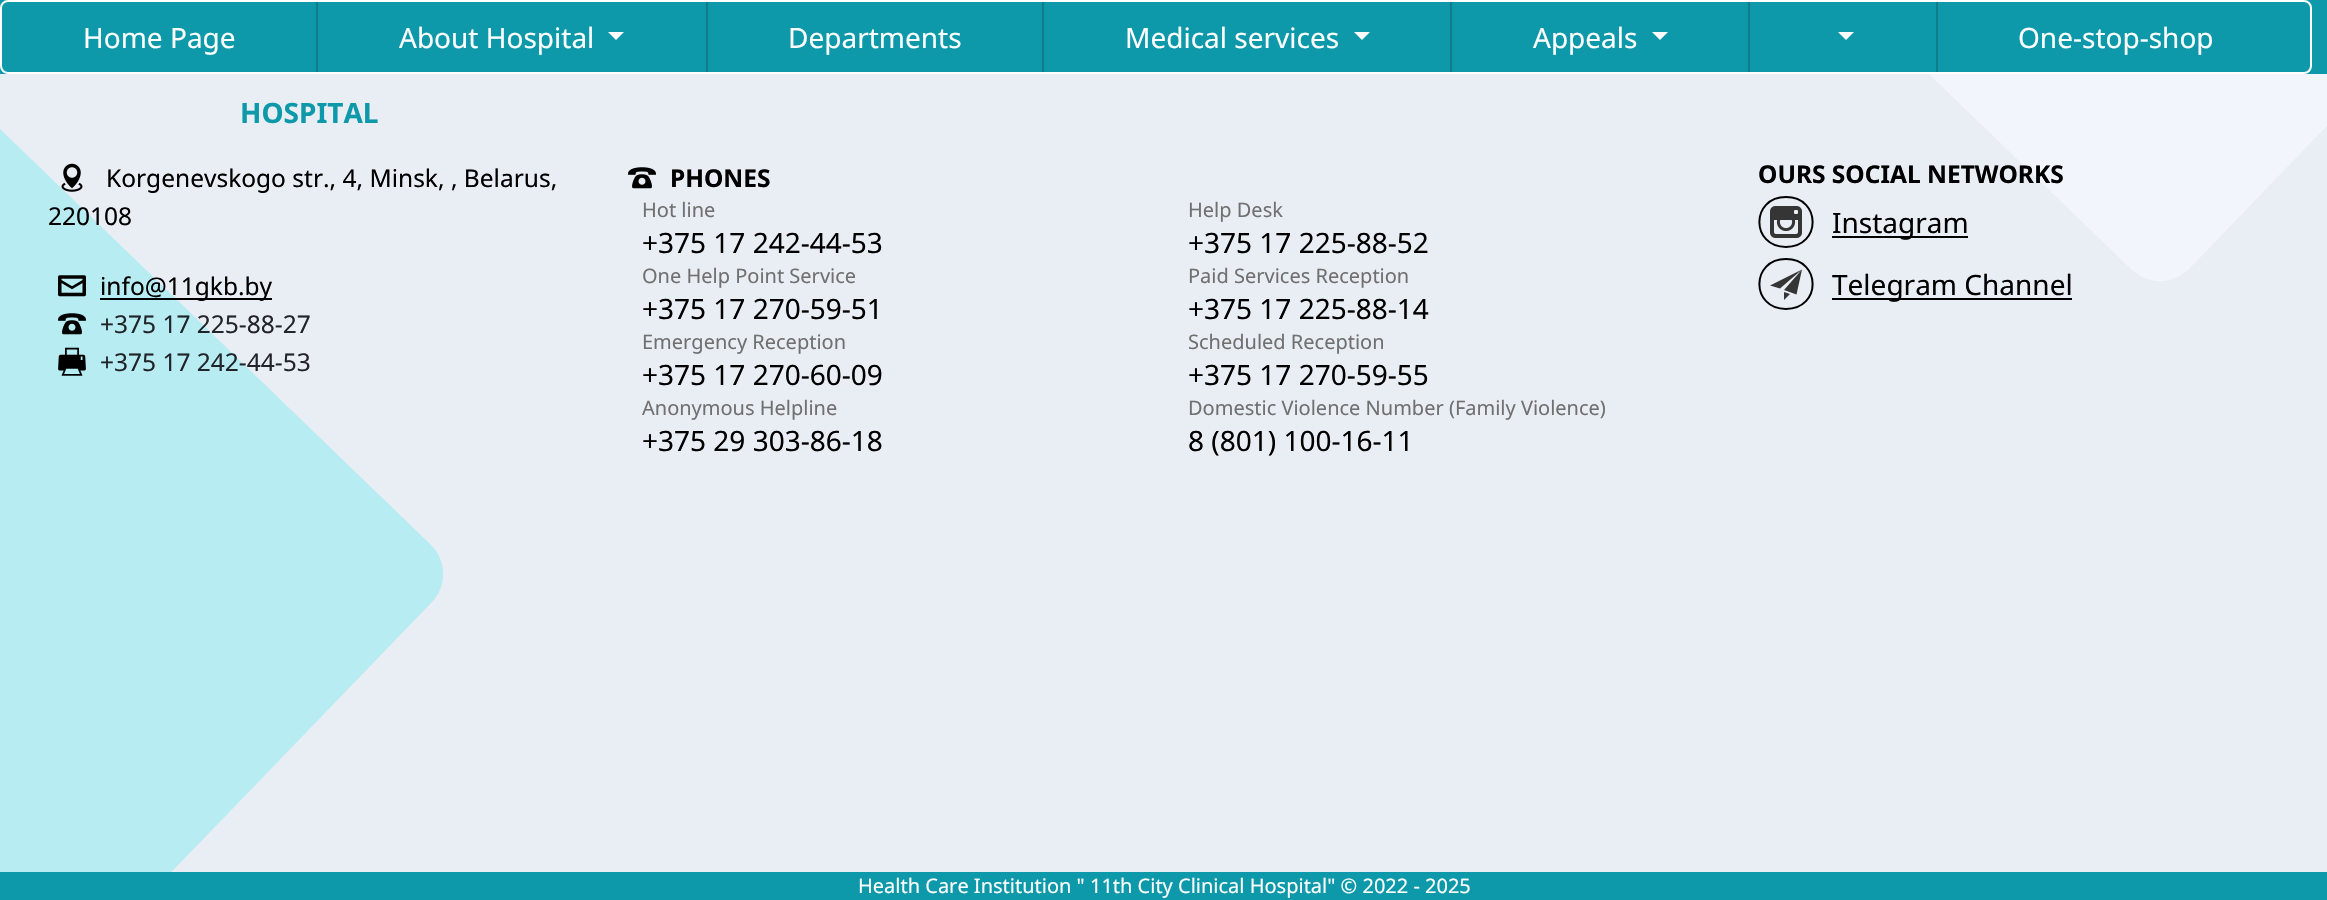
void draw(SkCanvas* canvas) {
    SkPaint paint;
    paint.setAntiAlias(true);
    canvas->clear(0xFFE9EDF4);
    paint.setColor(0xFFF2F5FB);
    canvas->drawPath(SkPathBuilder().moveTo(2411, 39).lineTo(2189, 269).cubicTo(2173, 285, 2148, 285, 2132, 270).lineTo(1798, -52).cubicTo(1782, -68, 1782, -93, 1797, -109).lineTo(2019, -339).cubicTo(2035, -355, 2060, -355, 2076, -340).lineTo(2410, -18).cubicTo(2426, -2, 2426, 23, 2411, 39).close().detach(), paint);
    paint.setColor(0xFF0D99A9);
    canvas->drawRect(SkRect::MakeXYWH(0, 0, 2327, 74), paint);
    paint.setStyle(SkPaint::kStroke_Style);
    paint.setStrokeWidth(2);
    paint.setColor(0xFFFFFFFF);
    canvas->drawRoundRect(SkRect::MakeXYWH(1, 1, 2310, 72), 7, 7, paint);
    SkFont font1(fontMgr->matchFamilyStyle("Noto Sans", SkFontStyle::Normal()), 28);
    font1.setSubpixel(true);
    paint.setStyle(SkPaint::kFill_Style);
    canvas->drawString("Home Page", 83, 48, font1, paint);
    paint.setColor(0xFF127C89);
    canvas->drawRect(SkRect::MakeXYWH(316, 2, 2, 70), paint);
    paint.setColor(0xFFFFFFFF);
    canvas->drawString("About Hospital", 399, 48, font1, paint);
    canvas->drawPath(SkPathBuilder().moveTo(608, 32).lineTo(624, 32).lineTo(616, 40).close().detach(), paint);
    paint.setColor(0xFF127C89);
    canvas->drawRect(SkRect::MakeXYWH(706, 2, 2, 70), paint);
    paint.setColor(0xFFFFFFFF);
    canvas->drawString("Departments", 788, 48, font1, paint);
    paint.setColor(0xFF127C89);
    canvas->drawRect(SkRect::MakeXYWH(1042, 2, 2, 70), paint);
    paint.setColor(0xFFFFFFFF);
    canvas->drawString("Medical services", 1125, 48, font1, paint);
    canvas->drawPath(SkPathBuilder().moveTo(1354, 32).lineTo(1370, 32).lineTo(1362, 40).close().detach(), paint);
    paint.setColor(0xFF127C89);
    canvas->drawRect(SkRect::MakeXYWH(1450, 2, 2, 70), paint);
    paint.setColor(0xFFFFFFFF);
    canvas->drawString("Appeals", 1533, 48, font1, paint);
    canvas->drawPath(SkPathBuilder().moveTo(1652, 32).lineTo(1668, 32).lineTo(1660, 40).close().detach(), paint);
    paint.setColor(0xFF127C89);
    canvas->drawRect(SkRect::MakeXYWH(1748, 2, 2, 70), paint);
    paint.setColor(0xFFFFFFFF);
    canvas->drawPath(SkPathBuilder().moveTo(1838, 32).lineTo(1854, 32).lineTo(1846, 40).close().detach(), paint);
    paint.setColor(0xFF127C89);
    canvas->drawRect(SkRect::MakeXYWH(1936, 2, 2, 70), paint);
    paint.setColor(0xFFFFFFFF);
    canvas->drawString("One-stop-shop", 2018, 48, font1, paint);
    SkFont font2(fontMgr->matchFamilyStyle("Noto Sans", SkFontStyle::Bold()), 28);
    font2.setSubpixel(true);
    paint.setColor(0xFF0D99A9);
    canvas->drawString("HOSPITAL", 240, 123, font2, paint);
    paint.setColor(0xFFB6ECF2);
    canvas->drawPath(SkPathBuilder().moveTo(432, 602).lineTo(-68, 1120).cubicTo(-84, 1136, -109, 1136, -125, 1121).lineTo(-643, 621).cubicTo(-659, 605, -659, 580, -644, 564).lineTo(-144, 46).cubicTo(-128, 30, -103, 30, -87, 45).lineTo(431, 545).cubicTo(447, 561, 447, 586, 432, 602).close().detach(), paint);
    canvas->drawImageRect(SkImages::DeferredFromEncodedData(SkData::MakeFromFileName("img1.png")), SkRect::MakeXYWH(61, 163, 22, 29), SkSamplingOptions());
    SkFont font3(fontMgr->matchFamilyStyle("Noto Sans", SkFontStyle::Normal()), 24.5f);
    font3.setSubpixel(true);
    paint.setColor(0xFF000000);
    canvas->drawString("Korgenevskogo str., 4, Minsk, , Belarus,", 106, 187, font3, paint);
    canvas->drawString("220108", 48, 225, font3, paint);
    canvas->drawImageRect(SkImages::DeferredFromEncodedData(SkData::MakeFromFileName("img2.png")), SkRect::MakeXYWH(58, 275, 28, 22), SkSamplingOptions());
    canvas->drawRect(SkRect::MakeXYWH(100, 298, 172, 2), paint);
    canvas->drawString("info@11gkb.by", 100, 295, font3, paint);
    canvas->drawImageRect(SkImages::DeferredFromEncodedData(SkData::MakeFromFileName("img3.png")), SkRect::MakeXYWH(58, 313, 28, 22), SkSamplingOptions());
    paint.setColor(0xFF212529);
    canvas->drawString("+375 17 225-88-27", 100, 333, font3, paint);
    canvas->drawImageRect(SkImages::DeferredFromEncodedData(SkData::MakeFromFileName("img4.png")), SkRect::MakeXYWH(58, 347, 28, 29), SkSamplingOptions());
    canvas->drawString("+375 17 242-44-53", 100, 371, font3, paint);
    canvas->drawImageRect(SkImages::DeferredFromEncodedData(SkData::MakeFromFileName("img5.png")), SkRect::MakeXYWH(628, 167, 28, 22), SkSamplingOptions());
    SkFont font4(fontMgr->matchFamilyStyle("Noto Sans", SkFontStyle::Bold()), 24.5f);
    font4.setSubpixel(true);
    paint.setColor(0xFF000000);
    canvas->drawString("PHONES", 670, 187, font4, paint);
    SkFont font5(fontMgr->matchFamilyStyle("Noto Sans", SkFontStyle::Normal()), 20);
    font5.setSubpixel(true);
    paint.setColor(0xFF707070);
    canvas->drawString("Hot line", 642, 217, font5, paint);
    paint.setColor(0xFF000000);
    canvas->drawString("+375 17 242-44-53", 642, 253, font1, paint);
    paint.setColor(0xFF707070);
    canvas->drawString("Help Desk", 1188, 217, font5, paint);
    paint.setColor(0xFF000000);
    canvas->drawString("+375 17 225-88-52", 1188, 253, font1, paint);
    paint.setColor(0xFF707070);
    canvas->drawString("One Help Point Service", 642, 283, font5, paint);
    paint.setColor(0xFF000000);
    canvas->drawString("+375 17 270-59-51", 642, 319, font1, paint);
    paint.setColor(0xFF707070);
    canvas->drawString("Paid Services Reception", 1188, 283, font5, paint);
    paint.setColor(0xFF000000);
    canvas->drawString("+375 17 225-88-14", 1188, 319, font1, paint);
    paint.setColor(0xFF707070);
    canvas->drawString("Emergency Reception", 642, 349, font5, paint);
    paint.setColor(0xFF000000);
    canvas->drawString("+375 17 270-60-09", 642, 385, font1, paint);
    paint.setColor(0xFF707070);
    canvas->drawString("Scheduled Reception", 1188, 349, font5, paint);
    paint.setColor(0xFF000000);
    canvas->drawString("+375 17 270-59-55", 1188, 385, font1, paint);
    paint.setColor(0xFF707070);
    canvas->drawString("Anonymous Helpline", 642, 415, font5, paint);
    paint.setColor(0xFF000000);
    canvas->drawString("+375 29 303-86-18", 642, 451, font1, paint);
    paint.setColor(0xFF707070);
    canvas->drawString("Domestic Violence Number (Family Violence)", 1188, 415, font5, paint);
    paint.setColor(0xFF000000);
    canvas->drawString("8 (801) 100-16-11", 1188, 451, font1, paint);
    canvas->drawString("OURS SOCIAL NETWORKS", 1758, 183, font4, paint);
    paint.setStyle(SkPaint::kStroke_Style);
    canvas->drawPath(SkPathBuilder().moveTo(1786, 197).cubicTo(1821.5f, 197, 1821.5f, 247, 1786, 247).cubicTo(1750.5f, 247, 1750.5f, 197, 1786, 197).close().detach(), paint);
    canvas->drawImageRect(SkImages::DeferredFromEncodedData(SkData::MakeFromFileName("img6.png")), SkRect::MakeXYWH(1770, 206, 32, 32), SkSamplingOptions());
    paint.setStyle(SkPaint::kFill_Style);
    canvas->drawRect(SkRect::MakeXYWH(1832, 236, 136, 2), paint);
    canvas->drawString("Instagram", 1832, 233, font1, paint);
    paint.setStyle(SkPaint::kStroke_Style);
    canvas->drawPath(SkPathBuilder().moveTo(1786, 259).cubicTo(1821.5f, 259, 1821.5f, 309, 1786, 309).cubicTo(1750.5f, 309, 1750.5f, 259, 1786, 259).close().detach(), paint);
    paint.setStyle(SkPaint::kFill_Style);
    paint.setColor(0xFF353535);
    canvas->drawPath(SkPathBuilder().moveTo(1784, 290).lineTo(1802, 269.5f).lineTo(1796.5f, 294.5f).close().moveTo(1780, 288.5f).lineTo(1770, 285.5f).lineTo(1802, 269.5f).close().moveTo(1784, 292).lineTo(1790, 294).lineTo(1784, 300).close().detach(), paint);
    paint.setColor(0xFF000000);
    canvas->drawRect(SkRect::MakeXYWH(1832, 298, 240, 2), paint);
    canvas->drawString("Telegram Channel", 1832, 295, font1, paint);
    paint.setColor(0xFF0D99A9);
    canvas->drawRect(SkRect::MakeXYWH(0, 872, 2327, 28), paint);
    paint.setColor(0xFFFFFFFF);
    canvas->drawString("Health Care Institution \" 11th City Clinical Hospital\" © 2022 - 2025", 858, 893, font5, paint);
}
